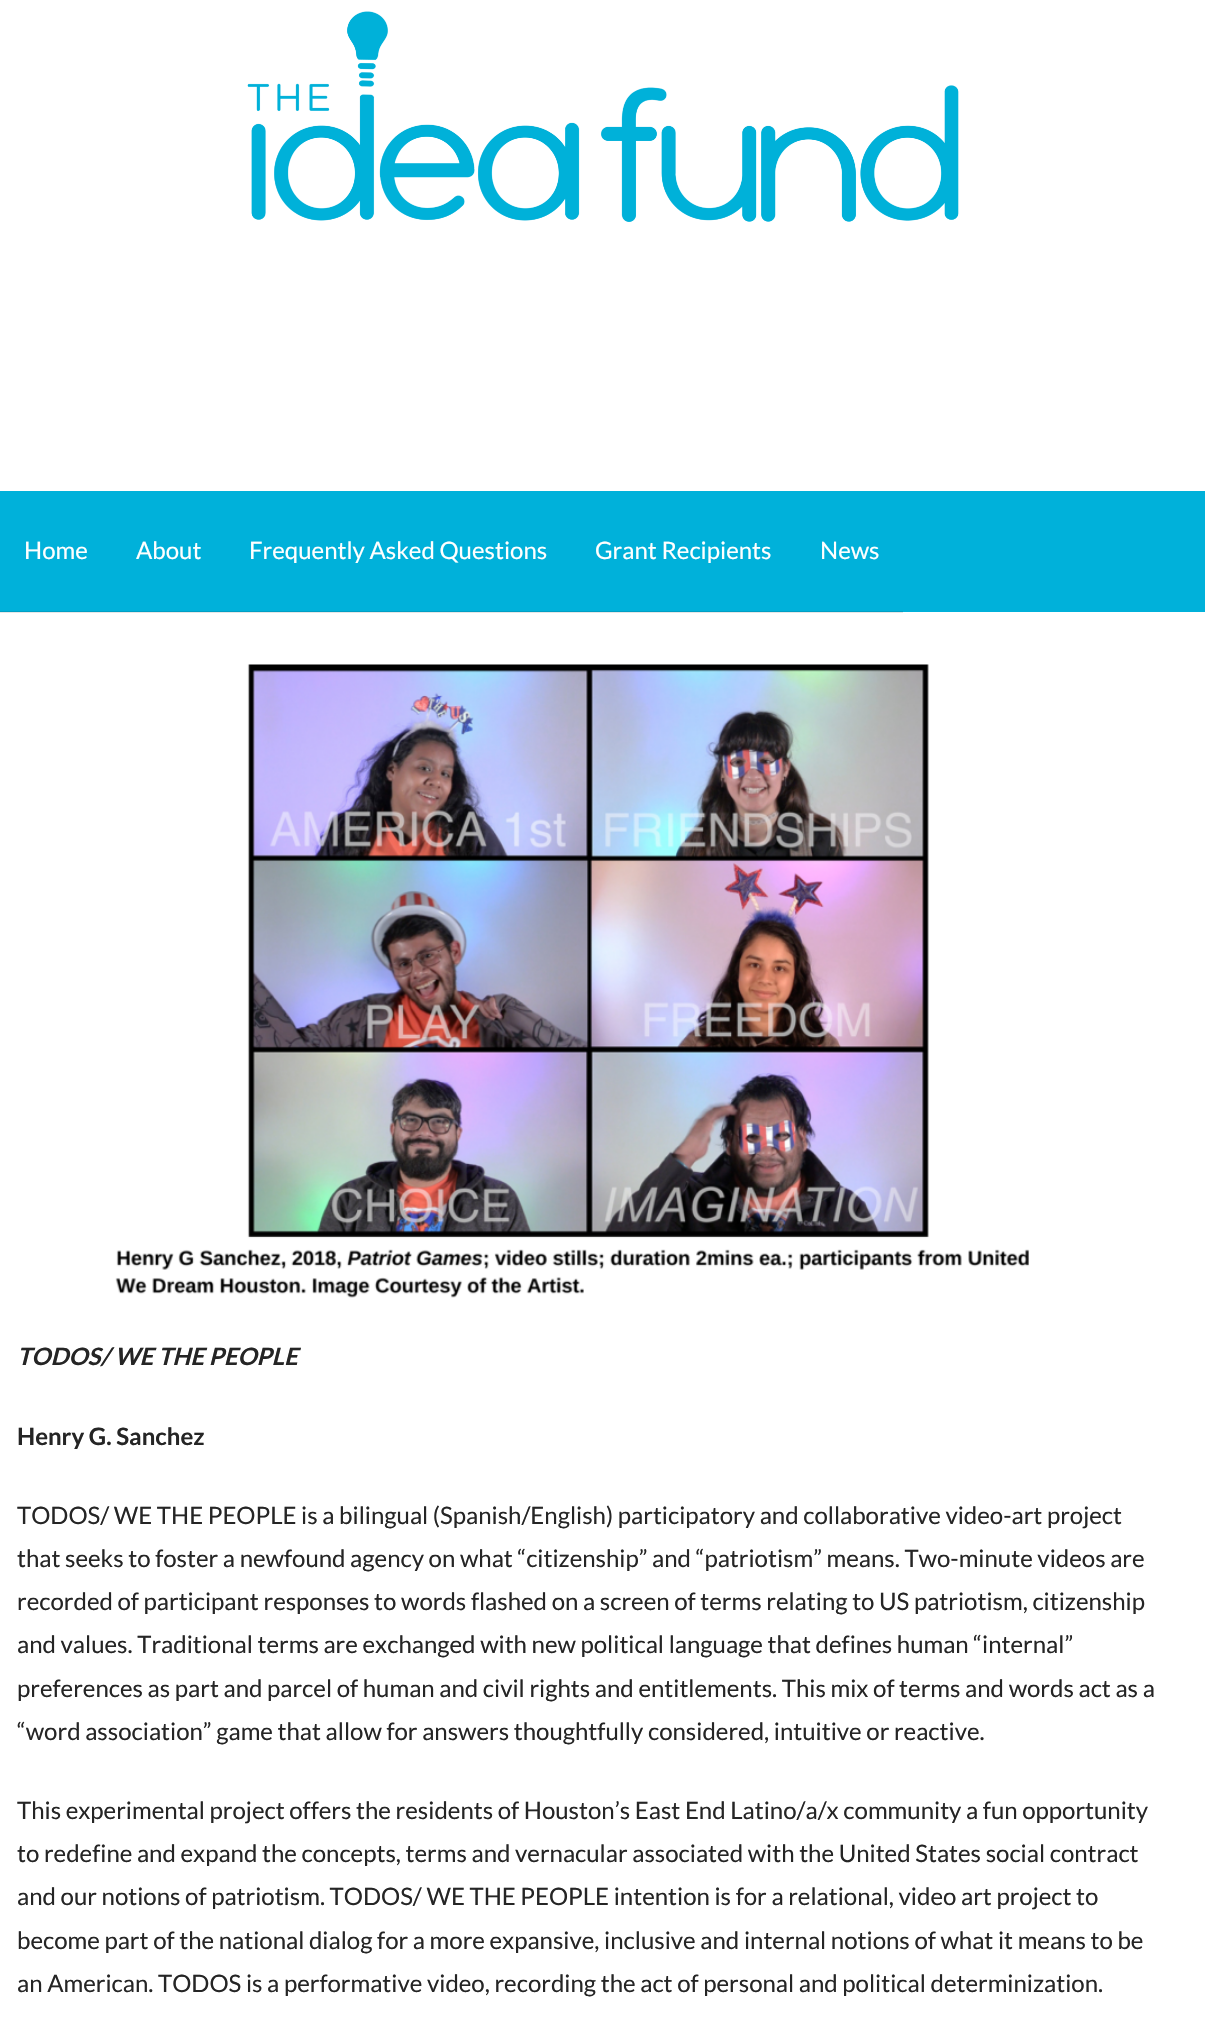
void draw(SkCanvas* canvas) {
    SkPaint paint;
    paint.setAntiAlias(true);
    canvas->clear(0xFFFFFFFF);
    paint.setColor(0xFFE6E6E6);
    canvas->drawRect(SkRect::MakeXYWH(0, 612, 903, 1), paint);
    canvas->drawImageRect(SkImages::DeferredFromEncodedData(SkData::MakeFromFileName("img1.png")), SkRect::MakeXYWH(247, 11, 712, 211), SkSamplingOptions());
    paint.setColor(0xFF00B1DA);
    canvas->drawRect(SkRect::MakeXYWH(0, 491, 1205, 121), paint);
    paint.setColor(0xFF009FC4);
    canvas->drawRect(SkRect::MakeXYWH(0, 611, 903, 1), paint);
    SkFont font1(fontMgr->matchFamilyStyle("Lato", SkFontStyle::Normal()), 24);
    font1.setSubpixel(true);
    paint.setColor(0xFFFFFFFF);
    canvas->drawString("Home", 24, 559, font1, paint);
    canvas->drawString("About", 136, 559, font1, paint);
    canvas->drawString("Frequently Asked Questions", 249, 559, font1, paint);
    canvas->drawString("Grant Recipients", 595, 559, font1, paint);
    canvas->drawString("News", 820, 559, font1, paint);
    canvas->drawImageRect(SkImages::DeferredFromEncodedData(SkData::MakeFromFileName("img2.png")), SkRect::MakeXYWH(115, 664, 914, 634), SkSamplingOptions());
    SkFont font2(fontMgr->matchFamilyStyle("Lato", SkFontStyle::BoldItalic()), 24);
    font2.setSubpixel(true);
    paint.setColor(0xFF252525);
    canvas->drawString("TODOS/ WE THE PEOPLE", 17, 1365, font2, paint);
    SkFont font3(fontMgr->matchFamilyStyle("Lato", SkFontStyle::Bold()), 24);
    font3.setSubpixel(true);
    canvas->drawString("Henry G. Sanchez", 17, 1445, font3, paint);
    canvas->drawString("TODOS/ WE THE PEOPLE is a bilingual (Spanish/English) participatory and collaborative video-art project", 17, 1524, font1, paint);
    canvas->drawString("that seeks to foster a newfound agency on what “citizenship” and “patriotism” means. Two-minute videos are", 17, 1567, font1, paint);
    canvas->drawString("recorded of participant responses to words flashed on a screen of terms relating to US patriotism, citizenship", 17, 1610, font1, paint);
    canvas->drawString("and values. Traditional terms are exchanged with new political language that defines human “internal”", 17, 1653, font1, paint);
    canvas->drawString("preferences as part and parcel of human and civil rights and entitlements. This mix of terms and words act as a", 17, 1697, font1, paint);
    canvas->drawString("“word association” game that allow for answers thoughtfully considered, intuitive or reactive.", 17, 1740, font1, paint);
    canvas->drawString("This experimental project offers the residents of Houston’s East End Latino/a/x community a fun opportunity", 17, 1819, font1, paint);
    canvas->drawString("to redefine and expand the concepts, terms and vernacular associated with the United States social contract", 17, 1862, font1, paint);
    canvas->drawString("and our notions of patriotism. TODOS/ WE THE PEOPLE intention is for a relational, video art project to", 17, 1905, font1, paint);
    canvas->drawString("become part of the national dialog for a more expansive, inclusive and internal notions of what it means to be", 17, 1949, font1, paint);
    canvas->drawString("an American. TODOS is a performative video, recording the act of personal and political determinization.", 17, 1992, font1, paint);
}
